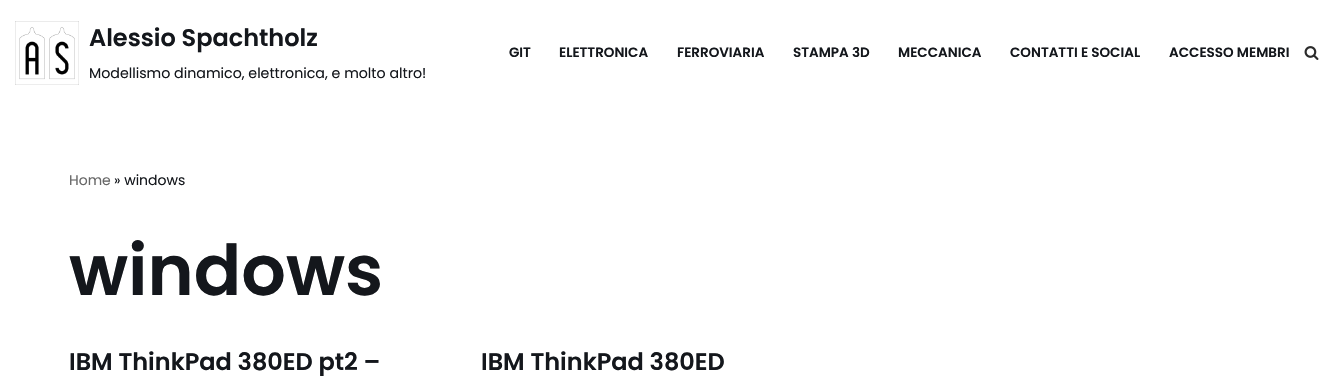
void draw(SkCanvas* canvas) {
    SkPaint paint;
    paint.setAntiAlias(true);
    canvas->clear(0xFFFFFFFF);
    canvas->drawImageRect(SkImages::DeferredFromEncodedData(SkData::MakeFromFileName("img1.png")), SkRect::MakeXYWH(15, 21, 64, 64), SkSamplingOptions());
    SkFont font1(fontMgr->matchFamilyStyle("Poppins", SkFontStyle(600, SkFontStyle::kNormal_Width, SkFontStyle::kUpright_Slant)), 24);
    font1.setSubpixel(true);
    paint.setColor(0xFF14171C);
    canvas->drawString("Alessio Spachtholz", 89, 46, font1, paint);
    SkFont font2(fontMgr->matchFamilyStyle("Poppins", SkFontStyle::Normal()), 14.2f);
    font2.setSubpixel(true);
    canvas->drawString("Modellismo dinamico, elettronica, e molto altro!", 89, 78, font2, paint);
    SkFont font3(fontMgr->matchFamilyStyle("Poppins", SkFontStyle(600, SkFontStyle::kNormal_Width, SkFontStyle::kUpright_Slant)), 13.5f);
    font3.setSubpixel(true);
    canvas->drawString("GIT", 509, 57, font3, paint);
    canvas->drawString("ELETTRONICA", 559, 57, font3, paint);
    canvas->drawString("FERROVIARIA", 677, 57, font3, paint);
    canvas->drawString("STAMPA 3D", 793, 57, font3, paint);
    canvas->drawString("MECCANICA", 898, 57, font3, paint);
    canvas->drawString("CONTATTI E SOCIAL", 1010, 57, font3, paint);
    canvas->drawString("ACCESSO MEMBRI", 1169, 57, font3, paint);
    canvas->drawImageRect(SkImages::DeferredFromEncodedData(SkData::MakeFromFileName("img2.png")), SkRect::MakeXYWH(1304, 46, 15, 14), SkSamplingOptions());
    SkFont font4(fontMgr->matchFamilyStyle("Poppins", SkFontStyle::Normal()), 14);
    font4.setSubpixel(true);
    paint.setColor(0xFF676767);
    canvas->drawString("Home", 69, 185, font4, paint);
    paint.setColor(0xFF14171C);
    canvas->drawString("» windows", 114, 185, font4, paint);
    SkFont font5(fontMgr->matchFamilyStyle("Poppins", SkFontStyle(600, SkFontStyle::kNormal_Width, SkFontStyle::kUpright_Slant)), 70);
    font5.setSubpixel(true);
    canvas->drawString("windows", 69, 295, font5, paint);
    canvas->drawString("IBM ThinkPad 380ED pt2 –", 69, 370, font1, paint);
    canvas->drawString("IBM ThinkPad 380ED", 481, 370, font1, paint);
}
